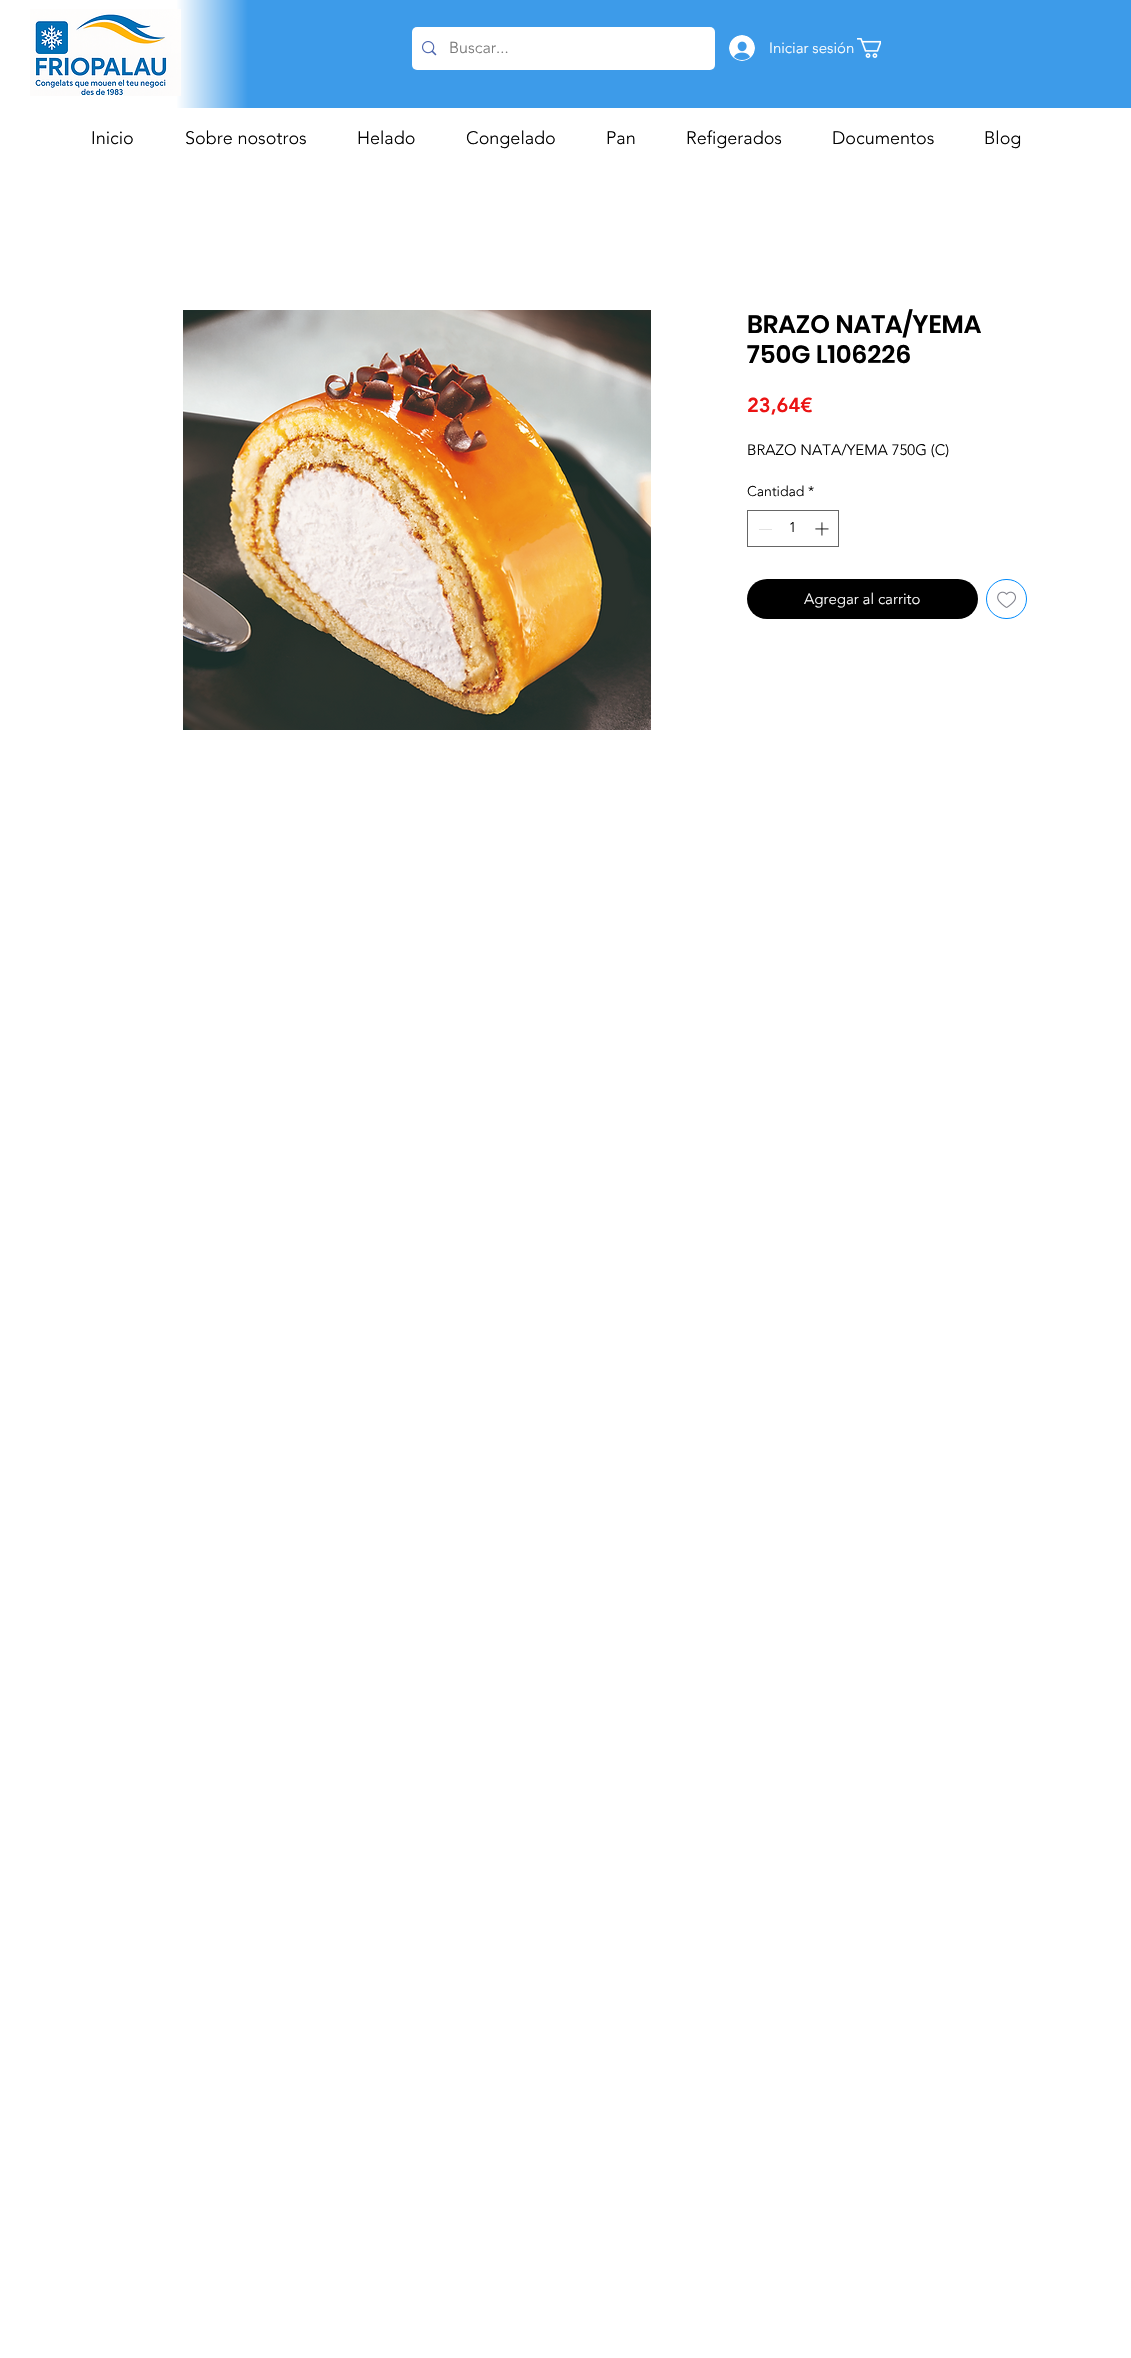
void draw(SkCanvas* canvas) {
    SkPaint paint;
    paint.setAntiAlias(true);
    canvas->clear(0xFFFFFFFF);
    {
        const SkColor colors[] = {0xFF3D9BE9, 0xFFFFFFFF};
        const float stops[] = {0, 0.29f};
        const SkPoint ends[] = {{248, 54}, {0, 54}};
        paint.setShader(SkGradientShader::MakeLinear(ends, colors, stops, 2, SkTileMode::kClamp));
        paint.setAlpha(255);
    }
    canvas->drawRect(SkRect::MakeXYWH(177, 0, 71, 108), paint);
    canvas->drawImageRect(SkImages::DeferredFromEncodedData(SkData::MakeFromFileName("img1.png")), SkRect::MakeXYWH(30, 9, 151, 87), SkSamplingOptions());
    paint.setShader(nullptr);
    paint.setColor(0xFF3D9BE9);
    canvas->drawRect(SkRect::MakeXYWH(248, 0, 883, 108), paint);
    paint.setColor(0xFFFFFFFF);
    canvas->drawRoundRect(SkRect::MakeXYWH(412, 27, 303, 43), 5, 5, paint);
    canvas->drawImageRect(SkImages::DeferredFromEncodedData(SkData::MakeFromFileName("img2.png")), SkRect::MakeXYWH(422, 41, 15, 15), SkSamplingOptions());
    SkFont font1(fontMgr->matchFamilyStyle("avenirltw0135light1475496", SkFontStyle(300, SkFontStyle::kNormal_Width, SkFontStyle::kUpright_Slant)), 16);
    font1.setSubpixel(true);
    paint.setColor(0xFF787878);
    canvas->drawString("Buscar...", 449, 53, font1, paint);
    canvas->drawImageRect(SkImages::DeferredFromEncodedData(SkData::MakeFromFileName("img3.png")), SkRect::MakeXYWH(729, 35, 26, 26), SkSamplingOptions());
    SkFont font2(fontMgr->matchFamilyStyle("avenirltw0135light1475496", SkFontStyle(300, SkFontStyle::kNormal_Width, SkFontStyle::kUpright_Slant)), 15);
    font2.setSubpixel(true);
    paint.setColor(0xFFFFFFFF);
    canvas->drawString("Iniciar sesión", 769, 53, font2, paint);
    canvas->drawImageRect(SkImages::DeferredFromEncodedData(SkData::MakeFromFileName("img4.png")), SkRect::MakeXYWH(857, 38, 24, 20), SkSamplingOptions());
    SkFont font3(fontMgr->matchFamilyStyle("avenirltw0135light1475496", SkFontStyle(300, SkFontStyle::kNormal_Width, SkFontStyle::kUpright_Slant)), 18);
    font3.setSubpixel(true);
    paint.setColor(0xFF000000);
    canvas->drawString("Inicio", 91, 144, font3, paint);
    canvas->drawString("Sobre nosotros", 185, 144, font3, paint);
    canvas->drawString("Helado", 357, 144, font3, paint);
    canvas->drawString("Congelado", 466, 144, font3, paint);
    canvas->drawString("Pan", 606, 144, font3, paint);
    canvas->drawString("Refigerados", 686, 144, font3, paint);
    canvas->drawString("Documentos", 832, 144, font3, paint);
    canvas->drawString("Blog", 984, 144, font3, paint);
    canvas->drawImageRect(SkImages::DeferredFromEncodedData(SkData::MakeFromFileName("img5.png")), SkRect::MakeXYWH(183, 310, 468, 420), SkSamplingOptions());
    SkFont font4(fontMgr->matchFamilyStyle("Poppins", SkFontStyle(600, SkFontStyle::kNormal_Width, SkFontStyle::kUpright_Slant)), 25);
    font4.setSubpixel(true);
    canvas->drawString("BRAZO NATA/YEMA", 747, 333, font4, paint);
    canvas->drawString("750G L106226", 747, 363, font4, paint);
    SkFont font5(fontMgr->matchFamilyStyle("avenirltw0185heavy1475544", SkFontStyle(900, SkFontStyle::kNormal_Width, SkFontStyle::kUpright_Slant)), 20);
    font5.setSubpixel(true);
    paint.setColor(0xFFEB1414);
    canvas->drawString("23,64€", 747, 412, font5, paint);
    paint.setColor(0xFF000000);
    canvas->drawString("BRAZO NATA/YEMA 750G (C)", 747, 455, font2, paint);
    SkFont font6(fontMgr->matchFamilyStyle("avenirltw0135light1475496", SkFontStyle(300, SkFontStyle::kNormal_Width, SkFontStyle::kUpright_Slant)), 14);
    font6.setSubpixel(true);
    canvas->drawString("Cantidad", 747, 496, font6, paint);
    canvas->drawString("*", 808, 496, font6, paint);
    paint.setStyle(SkPaint::kStroke_Style);
    paint.setStrokeWidth(1);
    paint.setColor(0xFF666666);
    canvas->drawRect(SkRect::MakeXYWH(747.5f, 510.5f, 91, 36), paint);
    paint.setStyle(SkPaint::kFill_Style);
    paint.setColor(0xFFE3E3E3);
    canvas->drawRect(SkRect::MakeXYWH(759, 529, 13, 1), paint);
    paint.setColor(0xFF000000);
    canvas->drawString("1", 789, 532, font6, paint);
    canvas->drawImageRect(SkImages::DeferredFromEncodedData(SkData::MakeFromFileName("img6.png")), SkRect::MakeXYWH(815, 522, 14, 14), SkSamplingOptions());
    canvas->drawRoundRect(SkRect::MakeXYWH(747, 579, 231, 40), 20, 20, paint);
    paint.setColor(0xFFFFFFFF);
    canvas->drawString("Agregar al carrito", 804, 604, font2, paint);
    paint.setStyle(SkPaint::kStroke_Style);
    paint.setColor(0xFF008AFC);
    canvas->drawRoundRect(SkRect::MakeXYWH(986.5f, 579.5f, 40, 39), 19.5f, 19.5f, paint);
    canvas->drawImageRect(SkImages::DeferredFromEncodedData(SkData::MakeFromFileName("img7.png")), SkRect::MakeXYWH(997, 591, 19, 17), SkSamplingOptions());
}
